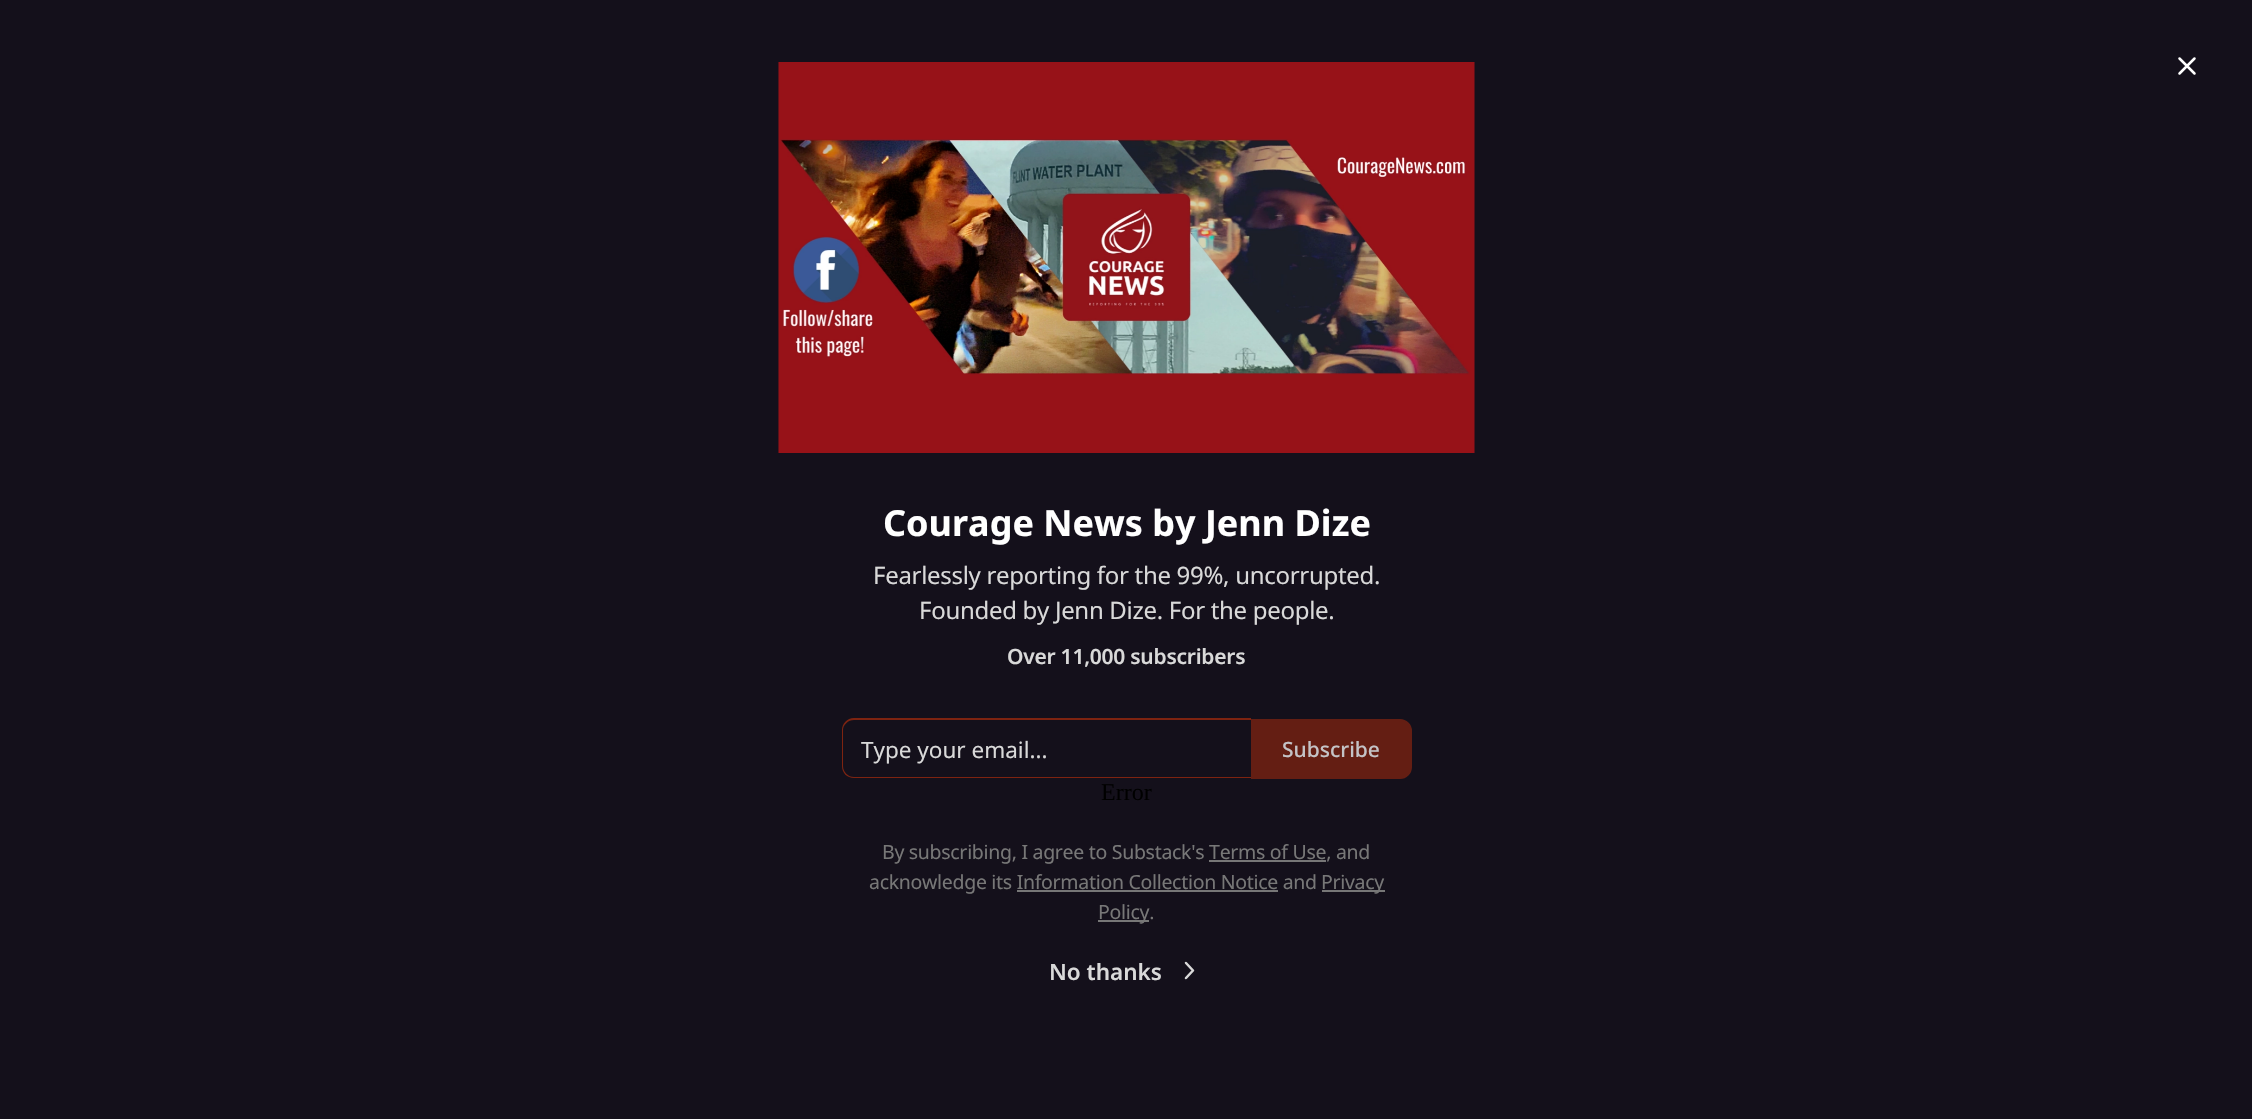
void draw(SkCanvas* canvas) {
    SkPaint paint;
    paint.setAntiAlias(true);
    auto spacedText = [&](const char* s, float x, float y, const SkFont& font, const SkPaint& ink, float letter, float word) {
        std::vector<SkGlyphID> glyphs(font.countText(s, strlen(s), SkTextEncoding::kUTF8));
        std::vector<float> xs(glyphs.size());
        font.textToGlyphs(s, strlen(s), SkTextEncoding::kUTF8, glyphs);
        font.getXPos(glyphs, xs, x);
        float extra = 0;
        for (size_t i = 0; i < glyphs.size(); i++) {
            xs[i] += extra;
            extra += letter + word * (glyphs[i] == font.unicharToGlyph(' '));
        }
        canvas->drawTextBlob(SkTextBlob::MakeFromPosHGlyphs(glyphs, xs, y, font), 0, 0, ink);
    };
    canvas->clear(0xFF14101B);
    canvas->drawImageRect(SkImages::DeferredFromEncodedData(SkData::MakeFromFileName("img1.png")), SkRect::MakeXYWH(778, 62, 697, 391), SkSamplingOptions());
    paint.setStyle(SkPaint::kStroke_Style);
    paint.setStrokeWidth(2.5f);
    paint.setStrokeCap(SkPaint::kRound_Cap);
    paint.setStrokeJoin(SkPaint::kRound_Join);
    paint.setColor(0xFFFFFFFF);
    canvas->drawPath(SkPathBuilder().moveTo(2194.5f, 58.5f).lineTo(2179.5f, 73.5f).moveTo(2179.5f, 58.5f).lineTo(2194.5f, 73.5f).detach(), paint);
    SkFont font1(fontMgr->matchFamilyStyle("Noto Sans", SkFontStyle::Bold()), 36);
    font1.setSubpixel(true);
    paint.setStyle(SkPaint::kFill_Style);
    canvas->drawString("Courage News by Jenn Dize", 883, 536, font1, paint);
    SkFont font2(fontMgr->matchFamilyStyle("Noto Sans", SkFontStyle::Normal()), 24);
    font2.setSubpixel(true);
    paint.setColor(0xFFD9D9D9);
    spacedText("Fearlessly reporting for the 99%, uncorrupted.", 873, 584, font2, paint, -0.3f, 0);
    spacedText("Founded by Jenn Dize. For the people.", 919, 619, font2, paint, -0.3f, 0);
    SkFont font3(fontMgr->matchFamilyStyle("Noto Sans", SkFontStyle(600, SkFontStyle::kNormal_Width, SkFontStyle::kUpright_Slant)), 21);
    font3.setSubpixel(true);
    spacedText("Over 11,000 subscribers", 1007, 664, font3, paint, -0.25f, 0);
    paint.setColor(0xFF7E2310);
    canvas->drawPath(SkPathBuilder(SkPathFillType::kEvenOdd).moveTo(854, 718).lineTo(1251, 718).lineTo(1251, 778).lineTo(854, 778).cubicTo(847, 778, 842, 773, 842, 766).lineTo(842, 730).cubicTo(842, 724, 847, 718, 854, 718).close().moveTo(854, 720).lineTo(1251, 720).lineTo(1251, 777).lineTo(854, 777).cubicTo(848, 777, 843, 772, 843, 766).lineTo(843, 730).cubicTo(843, 725, 848, 720, 854, 720).close().detach(), paint);
    SkFont font4(fontMgr->matchFamilyStyle("Noto Sans", SkFontStyle::Normal()), 22.5f);
    font4.setSubpixel(true);
    paint.setColor(0xFFD9D9D9);
    canvas->drawString("Type your email...", 861, 758, font4, paint);
    paint.setColor(0xFF641E13);
    canvas->drawPath(SkPathBuilder().moveTo(1252, 720).lineTo(1400, 720).cubicTo(1406, 720, 1411, 725, 1411, 731).lineTo(1411, 767).cubicTo(1411, 773, 1406, 778, 1400, 778).lineTo(1252, 778).close().detach(), paint);
    paint.setStyle(SkPaint::kStroke_Style);
    paint.setStrokeWidth(2);
    paint.setStrokeCap(SkPaint::kButt_Cap);
    paint.setStrokeJoin(SkPaint::kMiter_Join);
    canvas->drawPath(SkPathBuilder().moveTo(1252, 720).lineTo(1400, 720).cubicTo(1406, 720, 1411, 725, 1411, 731).lineTo(1411, 767).cubicTo(1411, 773, 1406, 778, 1400, 778).lineTo(1252, 778).close().detach(), paint);
    SkFont font5(fontMgr->matchFamilyStyle("Noto Sans", SkFontStyle(500, SkFontStyle::kNormal_Width, SkFontStyle::kUpright_Slant)), 21);
    font5.setSubpixel(true);
    paint.setStyle(SkPaint::kFill_Style);
    paint.setColor(0xFFC4C3C6);
    canvas->drawString("Subscribe", 1282, 757, font5, paint);
    SkFont font6(fontMgr->matchFamilyStyle("Liberation Serif", SkFontStyle::Normal()), 24);
    font6.setSubpixel(true);
    paint.setColor(0xFF000000);
    canvas->drawString("Error", 1101, 800, font6, paint);
    SkFont font7(fontMgr->matchFamilyStyle("Noto Sans", SkFontStyle::Normal()), 19.5f);
    font7.setSubpixel(true);
    paint.setColor(0xFF777777);
    spacedText("By subscribing, I agree to Substack's Terms of Use, and", 882, 859, font7, paint, -0.3f, 0);
    canvas->drawRect(SkRect::MakeXYWH(1209, 860, 117, 2), paint);
    spacedText("acknowledge its Information Collection Notice and", 869, 889, font7, paint, -0.3f, 0);
    canvas->drawRect(SkRect::MakeXYWH(1322, 890, 63, 2), paint);
    spacedText("Privacy", 1321, 889, font7, paint, -0.3f, 0);
    canvas->drawRect(SkRect::MakeXYWH(1017, 890, 261, 2), paint);
    canvas->drawRect(SkRect::MakeXYWH(1098, 920, 51, 2), paint);
    spacedText("Policy.", 1098, 919, font7, paint, -0.3f, 0);
    SkFont font8(fontMgr->matchFamilyStyle("Noto Sans", SkFontStyle(600, SkFontStyle::kNormal_Width, SkFontStyle::kUpright_Slant)), 22.5f);
    font8.setSubpixel(true);
    paint.setColor(0xFFD9D9D9);
    canvas->drawString("No thanks", 1049, 980, font8, paint);
    paint.setStyle(SkPaint::kStroke_Style);
    paint.setStrokeWidth(2.5f);
    paint.setStrokeCap(SkPaint::kRound_Cap);
    paint.setStrokeJoin(SkPaint::kRound_Join);
    canvas->drawPath(SkPathBuilder().moveTo(1186, 978).lineTo(1193, 970.5f).lineTo(1186, 963).detach(), paint);
}
